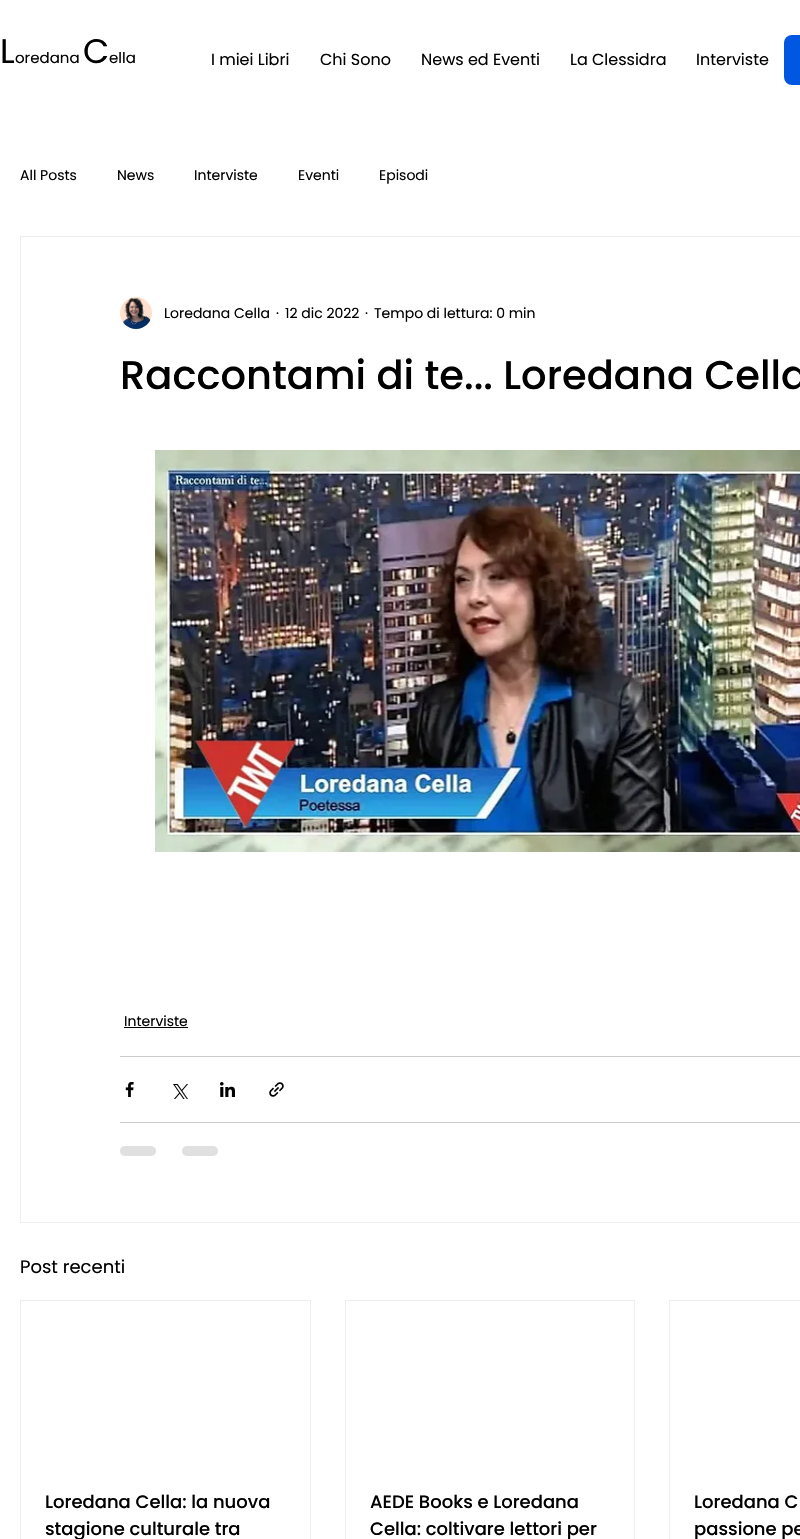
void draw(SkCanvas* canvas) {
    SkPaint paint;
    paint.setAntiAlias(true);
    canvas->clear(0xFFFFFFFF);
    SkFont font1(fontMgr->matchFamilyStyle("Poppins", SkFontStyle::Normal()), 34);
    font1.setSubpixel(true);
    paint.setColor(0xFF000000);
    canvas->drawString("L", 0, 63, font1, paint);
    SkFont font2(fontMgr->matchFamilyStyle("Poppins", SkFontStyle::Normal()), 15);
    font2.setSubpixel(true);
    canvas->drawString("oredana", 15, 63, font2, paint);
    canvas->drawString("C", 83, 63, font1, paint);
    canvas->drawString("ella", 109, 63, font2, paint);
    SkFont font3(fontMgr->matchFamilyStyle("Poppins", SkFontStyle::Normal()), 16);
    font3.setSubpixel(true);
    canvas->drawString("I miei Libri", 211, 65, font3, paint);
    canvas->drawString("Chi Sono", 320, 65, font3, paint);
    canvas->drawString("News ed Eventi", 421, 65, font3, paint);
    canvas->drawString("La Clessidra", 570, 65, font3, paint);
    canvas->drawString("Interviste", 696, 65, font3, paint);
    paint.setColor(0xFF0057E1);
    canvas->drawRoundRect(SkRect::MakeXYWH(784, 35, 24, 50), 8, 8, paint);
    SkFont font4(fontMgr->matchFamilyStyle("Poppins", SkFontStyle::Normal()), 14);
    font4.setSubpixel(true);
    paint.setColor(0xFF000000);
    canvas->drawString("All Posts", 20, 180, font4, paint);
    canvas->drawString("News", 117, 180, font4, paint);
    canvas->drawString("Interviste", 194, 180, font4, paint);
    canvas->drawString("Eventi", 298, 180, font4, paint);
    canvas->drawString("Episodi", 379, 180, font4, paint);
    paint.setStyle(SkPaint::kStroke_Style);
    paint.setStrokeWidth(1);
    paint.setColor(0xFFEEECEC);
    canvas->drawRect(SkRect::MakeXYWH(20.5f, 236.5f, 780, 986), paint);
    canvas->drawImageRect(SkImages::DeferredFromEncodedData(SkData::MakeFromFileName("img1.png")), SkRect::MakeXYWH(120, 297, 32, 32), SkSamplingOptions());
    paint.setStyle(SkPaint::kFill_Style);
    paint.setColor(0xFF000000);
    canvas->drawString("Loredana Cella", 164, 318, font4, paint);
    canvas->drawString("·", 276, 318, font4, paint);
    canvas->drawString("12 dic 2022", 285, 318, font4, paint);
    canvas->drawString("·", 365, 318, font4, paint);
    canvas->drawString("Tempo di lettura: 0 min", 374, 318, font4, paint);
    SkFont font5(fontMgr->matchFamilyStyle("Poppins", SkFontStyle(500, SkFontStyle::kNormal_Width, SkFontStyle::kUpright_Slant)), 40);
    font5.setSubpixel(true);
    canvas->drawString("Raccontami di te... Loredana Cella", 120, 389, font5, paint);
    canvas->drawImageRect(SkImages::DeferredFromEncodedData(SkData::MakeFromFileName("img2.png")), SkRect::MakeXYWH(155, 450, 645, 402), SkSamplingOptions());
    canvas->drawString("Interviste", 124, 1026, font4, paint);
    canvas->drawRect(SkRect::MakeXYWH(124, 1027, 64, 1), paint);
    paint.setColor(0xFFCCCCCC);
    canvas->drawRect(SkRect::MakeXYWH(120, 1056, 680, 1), paint);
    canvas->drawImageRect(SkImages::DeferredFromEncodedData(SkData::MakeFromFileName("img3.png")), SkRect::MakeXYWH(125, 1082, 9, 15), SkSamplingOptions());
    canvas->drawImageRect(SkImages::DeferredFromEncodedData(SkData::MakeFromFileName("img4.png")), SkRect::MakeXYWH(173, 1084, 15, 15), SkSamplingOptions());
    canvas->drawImageRect(SkImages::DeferredFromEncodedData(SkData::MakeFromFileName("img5.png")), SkRect::MakeXYWH(220, 1082, 15, 15), SkSamplingOptions());
    canvas->drawImageRect(SkImages::DeferredFromEncodedData(SkData::MakeFromFileName("img6.png")), SkRect::MakeXYWH(269, 1082, 15, 15), SkSamplingOptions());
    canvas->drawRect(SkRect::MakeXYWH(120, 1122, 680, 1), paint);
    paint.setColor(0xFFE0E0E0);
    canvas->drawRoundRect(SkRect::MakeXYWH(120, 1146, 36, 10), 5, 5, paint);
    canvas->drawRoundRect(SkRect::MakeXYWH(182, 1146, 36, 10), 5, 5, paint);
    SkFont font6(fontMgr->matchFamilyStyle("Poppins", SkFontStyle::Normal()), 18);
    font6.setSubpixel(true);
    paint.setColor(0xFF000000);
    canvas->drawString("Post recenti", 20, 1273, font6, paint);
    paint.setStyle(SkPaint::kStroke_Style);
    paint.setColor(0xFFEEECEC);
    canvas->drawRect(SkRect::MakeXYWH(20.5f, 1300.5f, 290, 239), paint);
    SkFont font7(fontMgr->matchFamilyStyle("Poppins", SkFontStyle(500, SkFontStyle::kNormal_Width, SkFontStyle::kUpright_Slant)), 18);
    font7.setSubpixel(true);
    paint.setStyle(SkPaint::kFill_Style);
    paint.setColor(0xFF000000);
    canvas->drawString("Loredana Cella: la nuova", 45, 1508, font7, paint);
    canvas->drawString("stagione culturale tra", 45, 1535, font7, paint);
    paint.setStyle(SkPaint::kStroke_Style);
    paint.setColor(0xFFEEECEC);
    canvas->drawRect(SkRect::MakeXYWH(345.5f, 1300.5f, 289, 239), paint);
    paint.setStyle(SkPaint::kFill_Style);
    paint.setColor(0xFF000000);
    canvas->drawString("AEDE Books e Loredana", 370, 1508, font7, paint);
    canvas->drawString("Cella: coltivare lettori per", 370, 1535, font7, paint);
    paint.setStyle(SkPaint::kStroke_Style);
    paint.setColor(0xFFEEECEC);
    canvas->drawRect(SkRect::MakeXYWH(669.5f, 1300.5f, 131, 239), paint);
    paint.setStyle(SkPaint::kFill_Style);
    paint.setColor(0xFF000000);
    canvas->drawString("Loredana C", 694, 1508, font7, paint);
    canvas->drawString("passione pe", 694, 1535, font7, paint);
}
